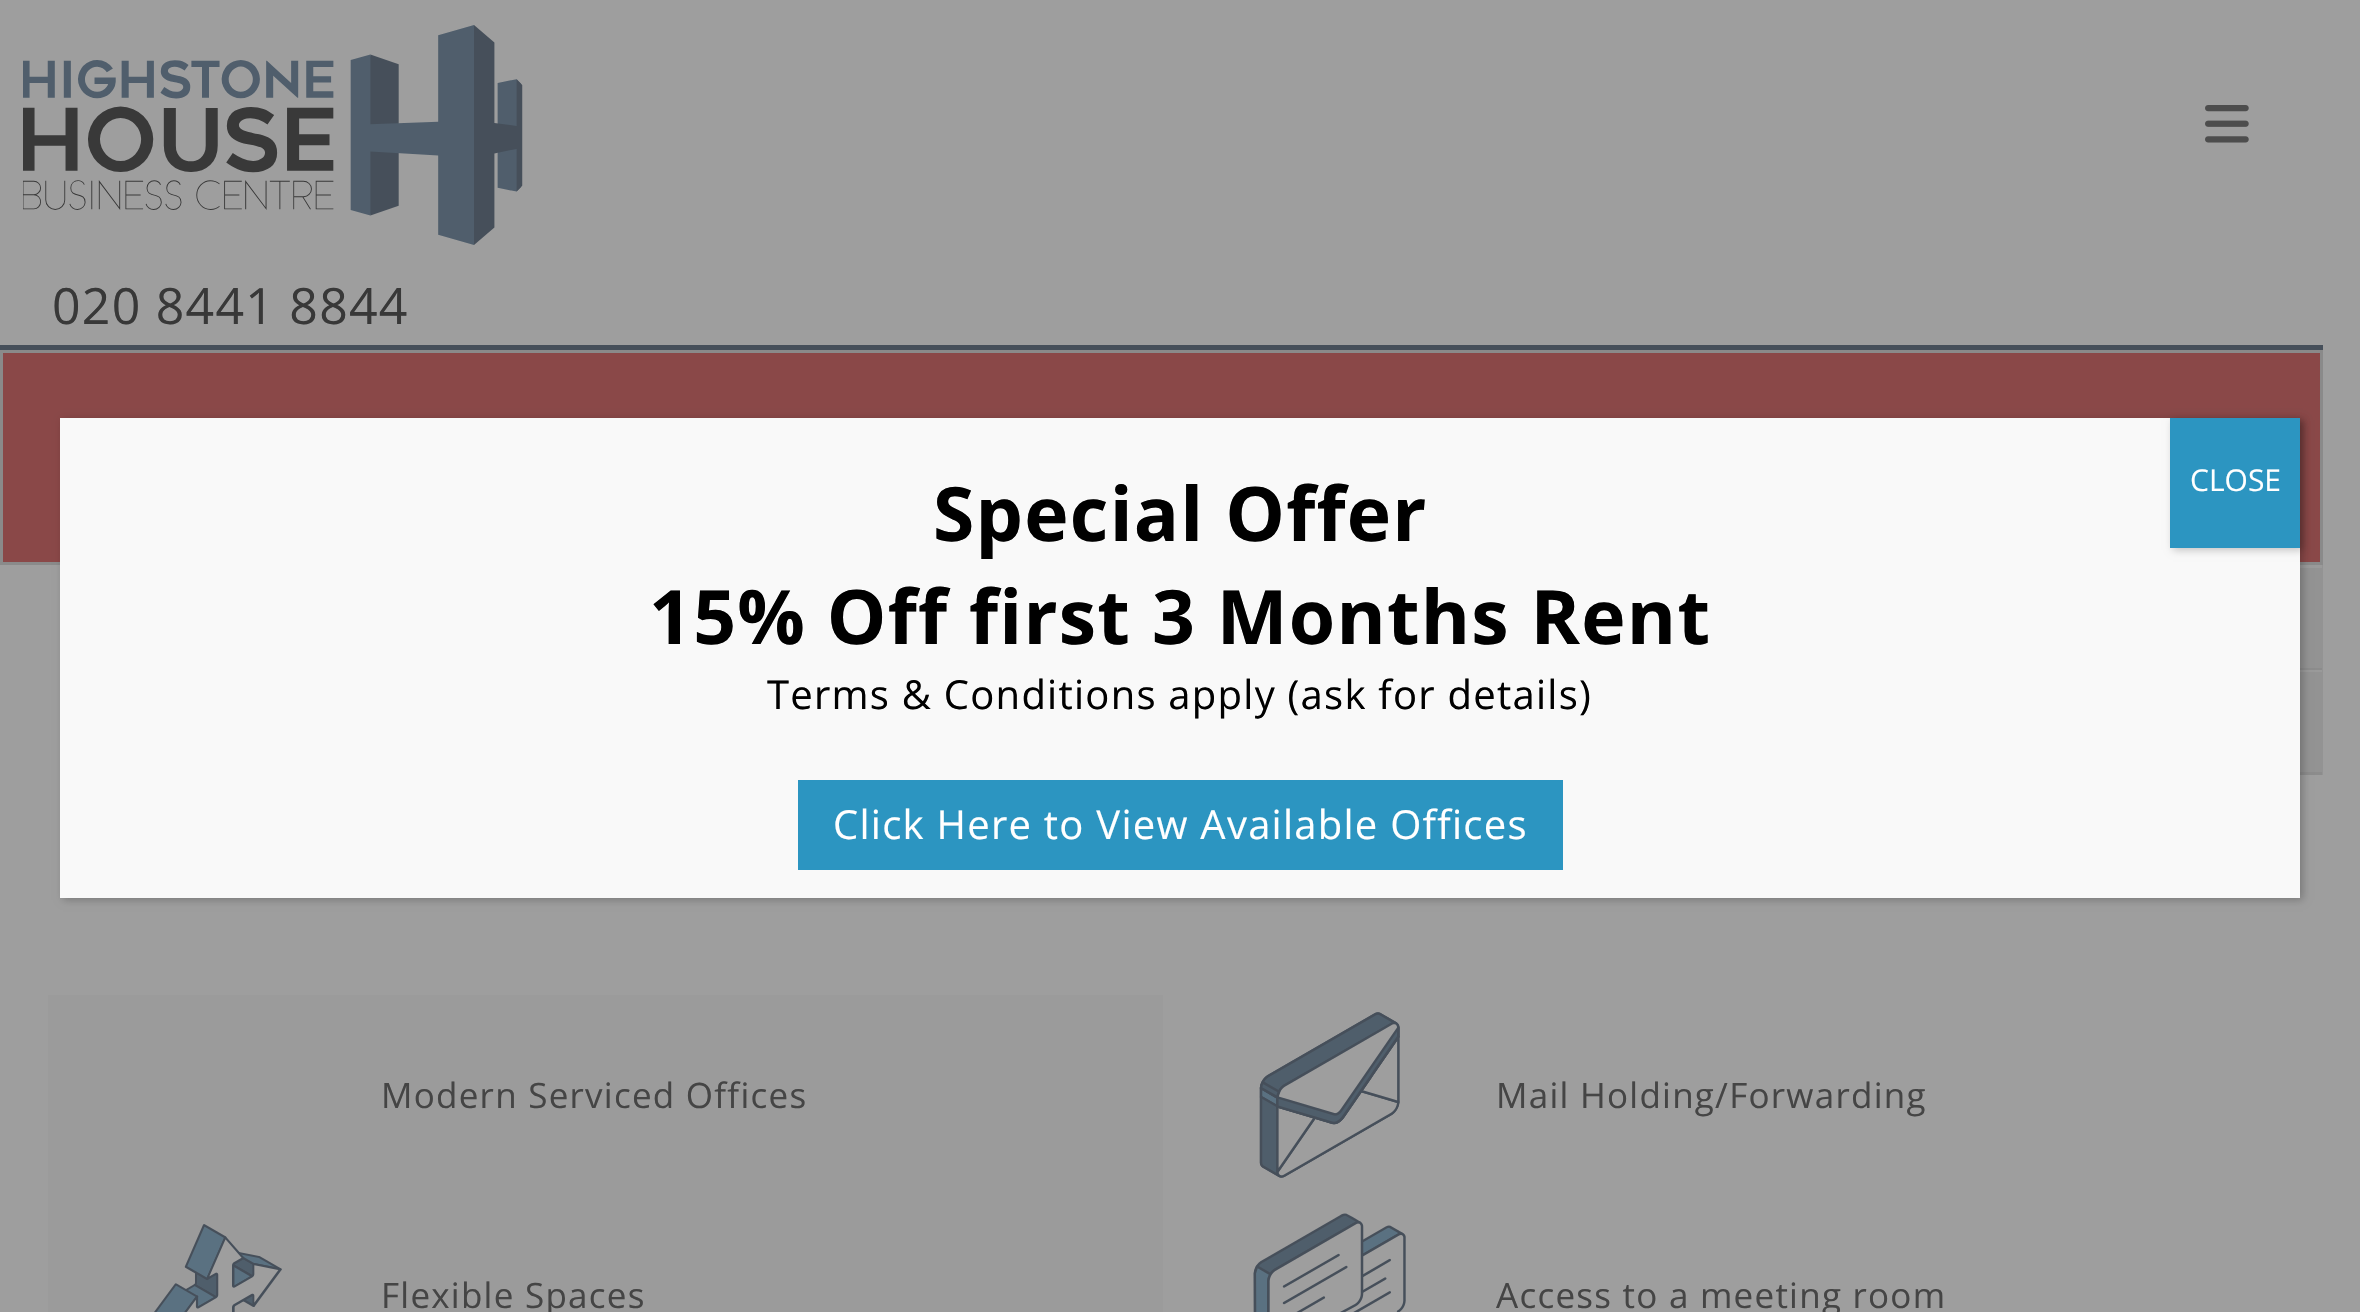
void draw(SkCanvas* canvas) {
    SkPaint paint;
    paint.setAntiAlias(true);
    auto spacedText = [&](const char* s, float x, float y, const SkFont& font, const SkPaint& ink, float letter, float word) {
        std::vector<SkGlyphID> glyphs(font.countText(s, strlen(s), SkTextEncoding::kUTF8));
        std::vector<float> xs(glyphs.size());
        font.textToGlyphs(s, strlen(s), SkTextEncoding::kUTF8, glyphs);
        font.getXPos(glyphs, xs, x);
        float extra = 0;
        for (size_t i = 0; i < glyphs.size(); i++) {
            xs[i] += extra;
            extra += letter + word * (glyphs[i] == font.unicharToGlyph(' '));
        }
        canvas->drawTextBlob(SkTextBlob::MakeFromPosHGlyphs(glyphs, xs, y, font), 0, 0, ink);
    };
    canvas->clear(0xFF9E9E9E);
    canvas->drawImageRect(SkImages::DeferredFromEncodedData(SkData::MakeFromFileName("img1.png")), SkRect::MakeXYWH(2205, 105, 44, 38), SkSamplingOptions());
    paint.setColor(0xFF464F5A);
    canvas->drawRect(SkRect::MakeXYWH(0, 345, 2323, 5), paint);
    canvas->drawImageRect(SkImages::DeferredFromEncodedData(SkData::MakeFromFileName("img2.png")), SkRect::MakeXYWH(23, 25, 500, 220), SkSamplingOptions());
    SkFont font1(fontMgr->matchFamilyStyle("Open Sans", SkFontStyle::Normal()), 50);
    font1.setSubpixel(true);
    paint.setColor(0xFF383838);
    spacedText("020 8441 8844", 52, 324, font1, paint, 1.25f, 0);
    paint.setColor(0xFF8A4848);
    canvas->drawRect(SkRect::MakeXYWH(1.5f, 351.5f, 2320, 212), paint);
    paint.setStyle(SkPaint::kStroke_Style);
    paint.setStrokeWidth(3);
    paint.setColor(0xFF8A8A8A);
    canvas->drawRect(SkRect::MakeXYWH(1.5f, 351.5f, 2320, 212), paint);
    paint.setStyle(SkPaint::kFill_Style);
    paint.setColor(0xFF9B9B9B);
    canvas->drawRect(SkRect::MakeXYWH(48, 995, 1115, 317), paint);
    SkFont font2(fontMgr->matchFamilyStyle("Open Sans", SkFontStyle::Normal()), 35);
    font2.setSubpixel(true);
    paint.setColor(0xFF454545);
    spacedText("Modern Serviced Offices", 381, 1108, font2, paint, 1.25f, 0);
    canvas->drawImageRect(SkImages::DeferredFromEncodedData(SkData::MakeFromFileName("img3.png")), SkRect::MakeXYWH(1259, 1012, 141, 166), SkSamplingOptions());
    spacedText("Mail Holding/Forwarding", 1496, 1108, font2, paint, 1.25f, 0);
    canvas->drawImageRect(SkImages::DeferredFromEncodedData(SkData::MakeFromFileName("img4.png")), SkRect::MakeXYWH(154, 1224, 128, 88), SkSamplingOptions());
    spacedText("Flexible Spaces", 381, 1308, font2, paint, 1.25f, 0);
    canvas->drawImageRect(SkImages::DeferredFromEncodedData(SkData::MakeFromFileName("img5.png")), SkRect::MakeXYWH(1253, 1213, 153, 99), SkSamplingOptions());
    spacedText("Access to a meeting room", 1496, 1308, font2, paint, 1.25f, 0);
    paint.setColor(0xFF939393);
    canvas->drawRect(SkRect::MakeXYWH(2300, 565, 23, 210), paint);
    paint.setColor(0xFF9A9A9A);
    canvas->drawPath(SkPathBuilder().moveTo(2232, 565).cubicTo(2228, 565, 2222, 568, 2222, 573).cubicTo(2224, 570, 2228, 568, 2232, 568).lineTo(2322, 568).lineTo(2322, 565).close().detach(), paint);
    paint.setColor(0xFF8C8C8C);
    canvas->drawRect(SkRect::MakeXYWH(2300, 668, 22, 2), paint);
    paint.setColor(0xFF9A9A9A);
    canvas->drawRect(SkRect::MakeXYWH(2300, 670, 22, 2), paint);
    paint.setColor(0xFF8C8C8C);
    canvas->drawPath(SkPathBuilder().moveTo(2322, 775).lineTo(2322, 772).lineTo(2232, 772).cubicTo(2228, 772, 2224, 770, 2222, 767).lineTo(2222, 768).cubicTo(2224, 772, 2228, 775, 2232, 775).close().detach(), paint);
    paint.setColor(0x3B020202);
    paint.setMaskFilter(SkMaskFilter::MakeBlur(kNormal_SkBlurStyle, 4));
    canvas->drawRect(SkRect::MakeXYWH(63, 420, 2240, 480), paint);
    paint.setMaskFilter(nullptr);
    paint.setColor(0xFFF9F9F9);
    canvas->drawRect(SkRect::MakeXYWH(60, 418, 2240, 480), paint);
    paint.setColor(0x3B020202);
    paint.setMaskFilter(SkMaskFilter::MakeBlur(kNormal_SkBlurStyle, 4));
    canvas->drawRect(SkRect::MakeXYWH(2173, 420, 130, 130), paint);
    paint.setMaskFilter(nullptr);
    paint.setColor(0xFF2C95C1);
    canvas->drawRect(SkRect::MakeXYWH(2170, 418, 130, 130), paint);
    SkFont font3(fontMgr->matchFamilyStyle("Open Sans", SkFontStyle::Normal()), 30);
    font3.setSubpixel(true);
    paint.setColor(0xFFFFFFFF);
    canvas->drawString("CLOSE", 2190, 491, font3, paint);
    SkFont font4(fontMgr->matchFamilyStyle("Open Sans", SkFontStyle::Bold()), 75);
    font4.setSubpixel(true);
    paint.setColor(0xFF000000);
    spacedText("Special Offer", 933, 541, font4, paint, 1.25f, 0);
    spacedText("15% Off first 3 Months Rent", 649, 644, font4, paint, 1.25f, 0);
    SkFont font5(fontMgr->matchFamilyStyle("Open Sans", SkFontStyle::Normal()), 40);
    font5.setSubpixel(true);
    spacedText("Terms & Conditions apply (ask for details)", 767, 709, font5, paint, 1.25f, 0);
    paint.setColor(0xFF2C95C1);
    canvas->drawRect(SkRect::MakeXYWH(798, 780, 765, 90), paint);
    paint.setColor(0xFFFFFFFF);
    spacedText("Click Here to View Available Offices", 833, 839, font5, paint, 1.25f, 0);
}
